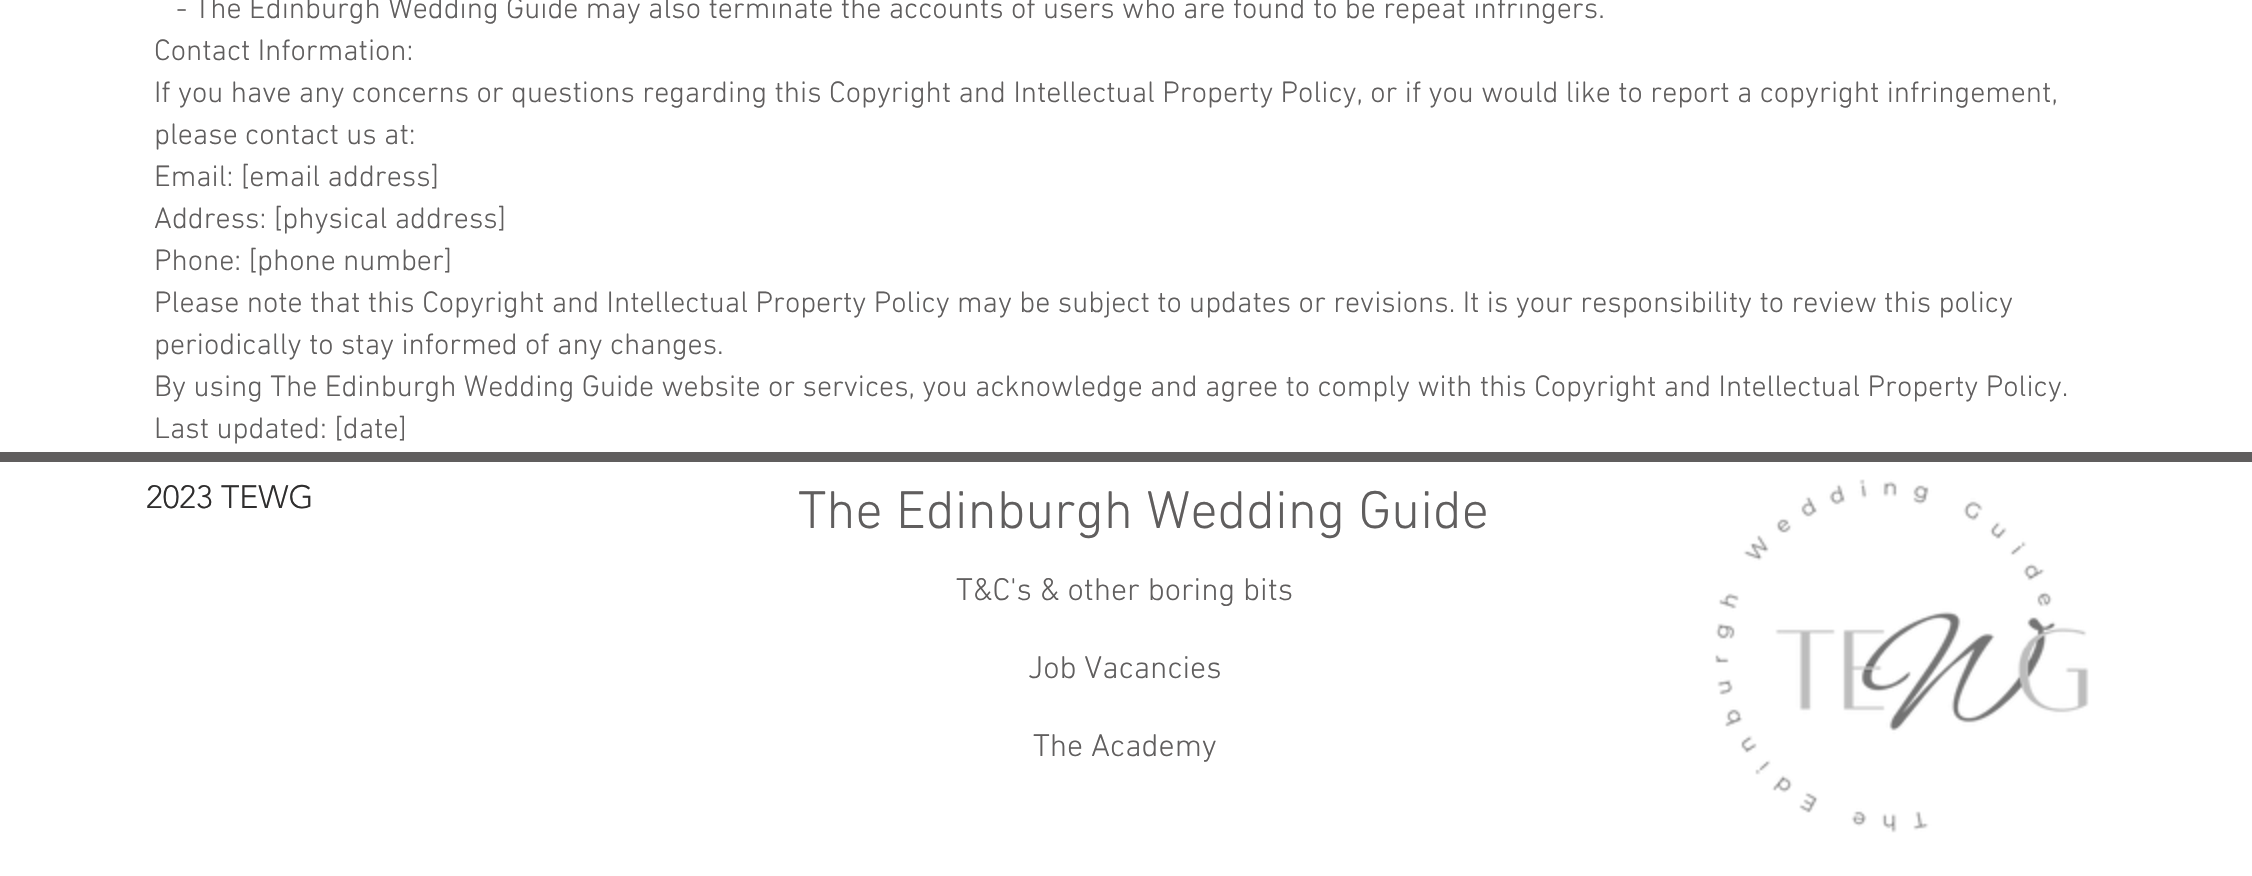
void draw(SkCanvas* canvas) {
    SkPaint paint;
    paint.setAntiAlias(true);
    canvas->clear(0xFFFFFFFF);
    SkFont font1(fontMgr->matchFamilyStyle("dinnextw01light", SkFontStyle(300, SkFontStyle::kNormal_Width, SkFontStyle::kUpright_Slant)), 30);
    font1.setSubpixel(true);
    paint.setColor(0xFF605E5E);
    canvas->drawString("- The Edinburgh Wedding Guide may also terminate the accounts of users who are found to be repeat infringers.", 176, 18, font1, paint);
    canvas->drawString("Contact Information:", 154, 60, font1, paint);
    canvas->drawString("If you have any concerns or questions regarding this Copyright and Intellectual Property Policy, or if you would like to report a copyright infringement,", 154, 102, font1, paint);
    canvas->drawString("please contact us at:", 154, 144, font1, paint);
    canvas->drawString("Email: [email address]", 154, 186, font1, paint);
    canvas->drawString("Address: [physical address]", 154, 228, font1, paint);
    canvas->drawString("Phone: [phone number]", 154, 270, font1, paint);
    canvas->drawString("Please note that this Copyright and Intellectual Property Policy may be subject to updates or revisions. It is your responsibility to review this policy", 154, 312, font1, paint);
    canvas->drawString("periodically to stay informed of any changes.", 154, 354, font1, paint);
    canvas->drawString("By using The Edinburgh Wedding Guide website or services, you acknowledge and agree to comply with this Copyright and Intellectual Property Policy.", 154, 396, font1, paint);
    canvas->drawString("Last updated: [date]", 154, 438, font1, paint);
    canvas->drawRect(SkRect::MakeXYWH(0, 452, 2252, 10), paint);
    SkFont font2(fontMgr->matchFamilyStyle("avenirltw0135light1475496", SkFontStyle(300, SkFontStyle::kNormal_Width, SkFontStyle::kUpright_Slant)), 32);
    font2.setSubpixel(true);
    paint.setColor(0xFF2F2E2E);
    canvas->drawString("2023 TEWG", 146, 508, font2, paint);
    SkFont font3(fontMgr->matchFamilyStyle("dinnextw01light", SkFontStyle(300, SkFontStyle::kNormal_Width, SkFontStyle::kUpright_Slant)), 54);
    font3.setSubpixel(true);
    paint.setColor(0xFF605E5E);
    canvas->drawString("The Edinburgh Wedding Guide", 798, 528, font3, paint);
    canvas->drawImageRect(SkImages::DeferredFromEncodedData(SkData::MakeFromFileName("img1.png")), SkRect::MakeXYWH(1715, 479, 374, 354), SkSamplingOptions());
    SkFont font4(fontMgr->matchFamilyStyle("dinnextw01light", SkFontStyle(300, SkFontStyle::kNormal_Width, SkFontStyle::kUpright_Slant)), 32);
    font4.setSubpixel(true);
    canvas->drawString("T&C's & other boring bits", 956, 600, font4, paint);
    canvas->drawString("Job Vacancies", 1028, 678, font4, paint);
    canvas->drawString("The Academy", 1033, 756, font4, paint);
}
